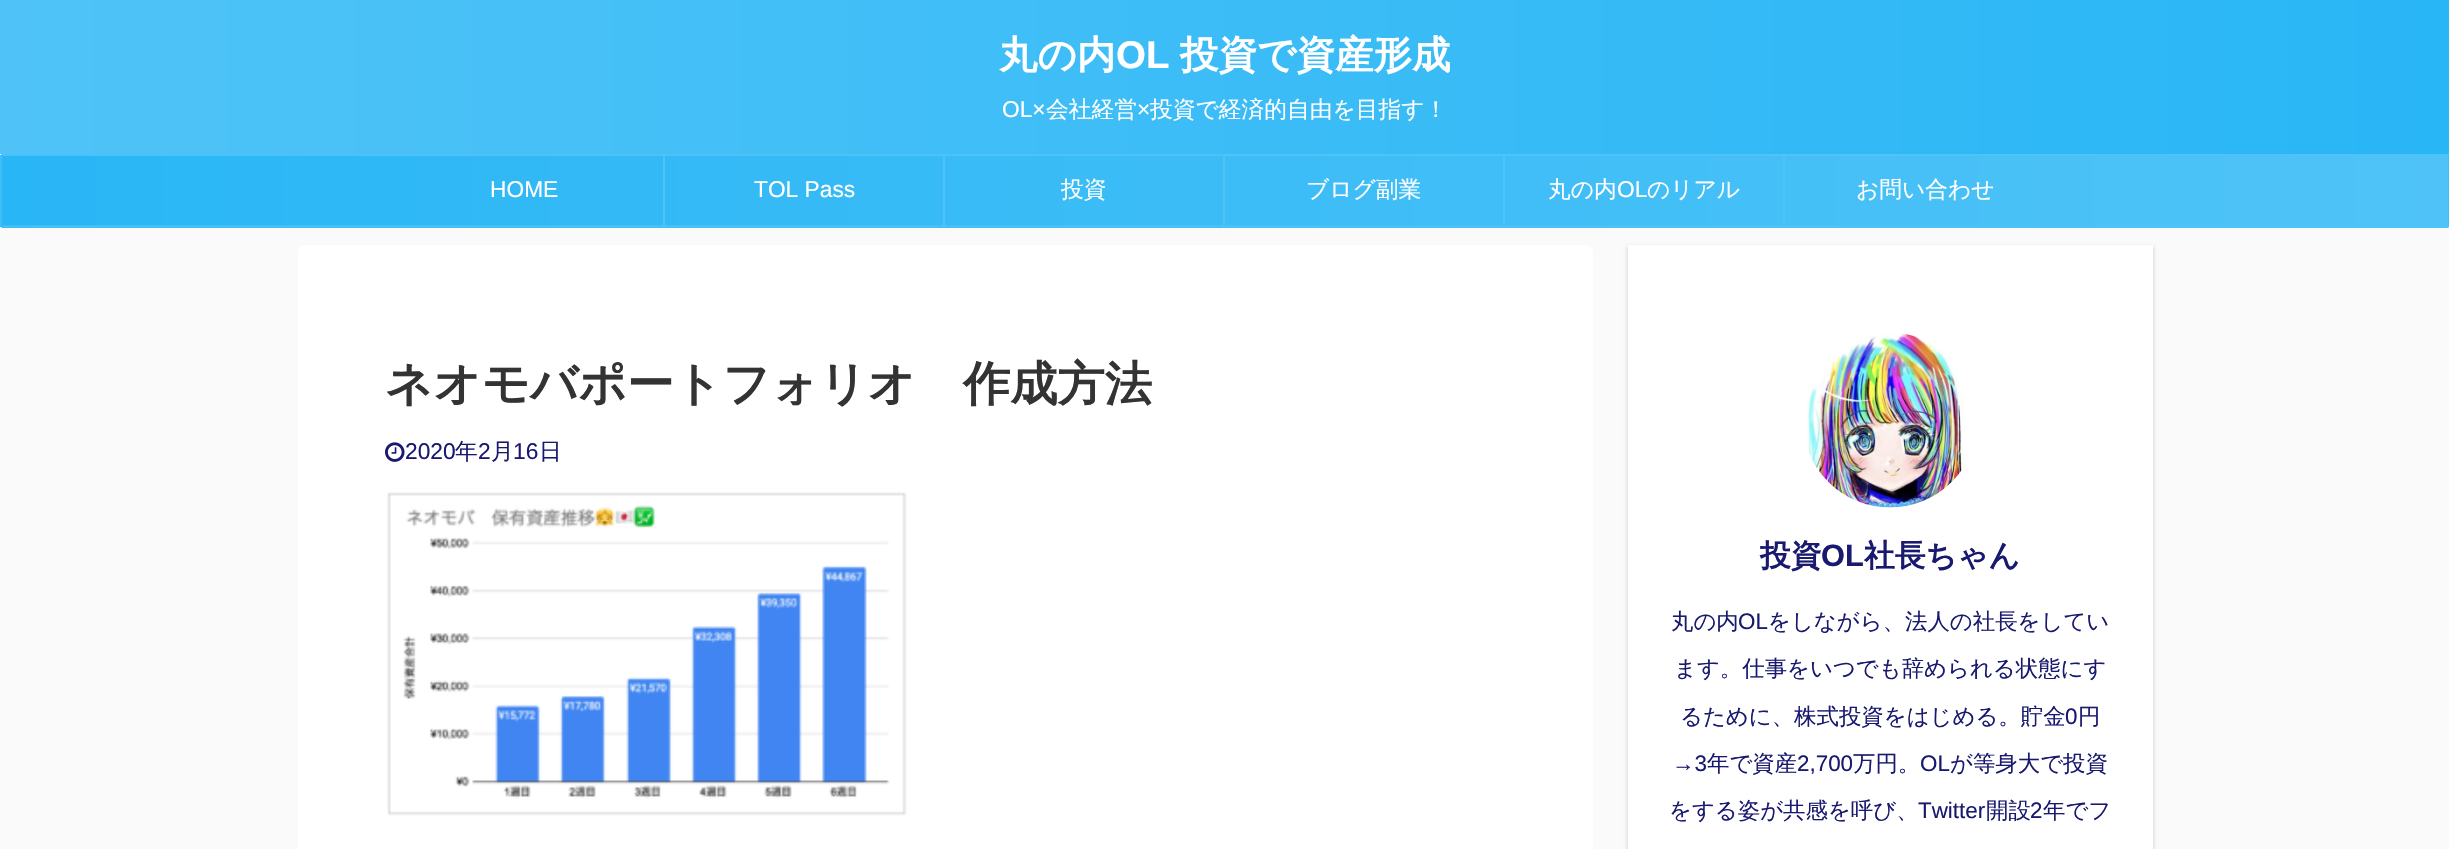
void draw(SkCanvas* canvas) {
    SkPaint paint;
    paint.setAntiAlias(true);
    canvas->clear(0xFFFAFAFA);
    paint.setColor(0xFF3EBDF6);
    canvas->drawRect(SkRect::MakeXYWH(2448, 155, 1, 72), paint);
    paint.setColor(0xFF60C9F7);
    canvas->drawRect(SkRect::MakeXYWH(1, 154, 2448, 2), paint);
    paint.setColor(0xFF2FB8F6);
    canvas->drawRect(SkRect::MakeXYWH(2448, 155, 1, 1), paint);
    {
        const SkColor colors[] = {0xFF29B6F6, 0xFF4FC3F7};
        const float stops[] = {0, 1};
        const SkPoint ends[] = {{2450, 77}, {0, 77}};
        paint.setShader(SkGradientShader::MakeLinear(ends, colors, stops, 2, SkTileMode::kClamp));
        paint.setAlpha(255);
    }
    canvas->drawRect(SkRect::MakeXYWH(0, 0, 2449, 154), paint);
    SkFont font1(fontMgr->matchFamilyStyle("WenQuanYi Zen Hei", SkFontStyle::Bold()), 38.5f);
    font1.setSubpixel(true);
    paint.setShader(nullptr);
    paint.setColor(0xFFFFFFFF);
    canvas->drawString("丸の内", 999, 68, font1, paint);
    SkFont font2(fontMgr->matchFamilyStyle("Liberation Sans", SkFontStyle::Bold()), 38.5f);
    font2.setSubpixel(true);
    canvas->drawString("OL", 1116, 68, font2, paint);
    canvas->drawString("投資で資産形成", 1180, 68, font1, paint);
    SkFont font3(fontMgr->matchFamilyStyle("Liberation Sans", SkFontStyle::Normal()), 22.75f);
    font3.setSubpixel(true);
    canvas->drawString("OL×", 1002, 117, font3, paint);
    SkFont font4(fontMgr->matchFamilyStyle("WenQuanYi Zen Hei", SkFontStyle(500, SkFontStyle::kNormal_Width, SkFontStyle::kUpright_Slant)), 22.75f);
    font4.setSubpixel(true);
    canvas->drawString("会社経営", 1046, 117, font4, paint);
    canvas->drawString("×", 1137, 117, font3, paint);
    canvas->drawString("投資で経済的自由を目指す！", 1150, 117, font4, paint);
    {
        const SkColor colors[] = {0xFF4FC3F7, 0xFF29B6F6};
        const float stops[] = {0, 1};
        const SkPoint ends[] = {{2448, 191}, {1.8f, 191}};
        paint.setShader(SkGradientShader::MakeLinear(ends, colors, stops, 2, SkTileMode::kClamp));
        paint.setAlpha(255);
    }
    canvas->drawRect(SkRect::MakeXYWH(2, 156, 2446, 72), paint);
    {
        const SkColor colors[] = {0xFF4FC3F7, 0xFF4BC2F7};
        const float stops[] = {0, 1};
        const SkPoint ends[] = {{2448, 191}, {1.8f, 191}};
        paint.setShader(SkGradientShader::MakeLinear(ends, colors, stops, 2, SkTileMode::kClamp));
        paint.setAlpha(255);
    }
    canvas->drawRect(SkRect::MakeXYWH(2, 154, 2446, 2), paint);
    paint.setStyle(SkPaint::kStroke_Style);
    paint.setStrokeWidth(1.8f);
    paint.setShader(nullptr);
    paint.setColor(0xFF4FC3F7);
    canvas->drawPath(SkPathBuilder().moveTo(2449, 226.5f).lineTo(1, 226.5f).detach(), paint);
    paint.setStyle(SkPaint::kFill_Style);
    paint.setColor(0xE629B6F6);
    canvas->drawRect(SkRect::MakeXYWH(0, 155, 2, 72), paint);
    paint.setColor(0xFF4FC3F7);
    canvas->drawRect(SkRect::MakeXYWH(663, 156, 2, 70), paint);
    paint.setColor(0xFFFFFFFF);
    canvas->drawString("HOME", 490, 197, font3, paint);
    paint.setColor(0xFF4FC3F7);
    canvas->drawRect(SkRect::MakeXYWH(943, 156, 2, 70), paint);
    paint.setColor(0xFFFFFFFF);
    canvas->drawString("TOL Pass", 754, 197, font3, paint);
    paint.setColor(0xFF4FC3F7);
    canvas->drawRect(SkRect::MakeXYWH(1223, 156, 2, 70), paint);
    paint.setColor(0xFFFFFFFF);
    canvas->drawString("投資", 1061, 197, font4, paint);
    paint.setColor(0xFF4FC3F7);
    canvas->drawRect(SkRect::MakeXYWH(1503, 156, 2, 70), paint);
    paint.setColor(0xFFFFFFFF);
    canvas->drawString("ブログ副業", 1306, 197, font4, paint);
    paint.setColor(0xFF4FC3F7);
    canvas->drawRect(SkRect::MakeXYWH(1783, 156, 2, 70), paint);
    paint.setColor(0xFFFFFFFF);
    canvas->drawString("丸の内", 1548, 197, font4, paint);
    canvas->drawString("OL", 1617, 197, font3, paint);
    canvas->drawString("のリアル", 1647, 197, font4, paint);
    canvas->drawString("お問い合わせ", 1856, 197, font4, paint);
    canvas->drawRoundRect(SkRect::MakeXYWH(298, 245, 1295, 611), 7, 7, paint);
    SkFont font5(fontMgr->matchFamilyStyle("WenQuanYi Zen Hei", SkFontStyle::Bold()), 47.25f);
    font5.setSubpixel(true);
    paint.setColor(0xFF333333);
    canvas->drawString("ネオモバポートフォリオ　作成方法", 385, 400, font5, paint);
    canvas->drawImageRect(SkImages::DeferredFromEncodedData(SkData::MakeFromFileName("img1.png")), SkRect::MakeXYWH(385, 442, 20, 20), SkSamplingOptions());
    paint.setColor(0xFF191970);
    canvas->drawString("2020", 405, 459, font3, paint);
    canvas->drawString("年", 455, 459, font4, paint);
    canvas->drawString("2", 478, 459, font3, paint);
    canvas->drawString("月", 491, 459, font4, paint);
    canvas->drawString("16", 513, 459, font3, paint);
    canvas->drawString("日", 539, 459, font4, paint);
    canvas->drawImageRect(SkImages::DeferredFromEncodedData(SkData::MakeFromFileName("img2.png")), SkRect::MakeXYWH(387, 492, 520, 324), SkSamplingOptions());
    paint.setColor(0x33000000);
    paint.setMaskFilter(SkMaskFilter::MakeBlur(kNormal_SkBlurStyle, 2));
    canvas->drawRect(SkRect::MakeXYWH(1628, 247, 525, 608), paint);
    paint.setMaskFilter(nullptr);
    paint.setColor(0xFFFFFFFF);
    canvas->drawRect(SkRect::MakeXYWH(1628, 245, 525, 604), paint);
    canvas->drawImageRect(SkImages::DeferredFromEncodedData(SkData::MakeFromFileName("img3.png")), SkRect::MakeXYWH(1806, 333, 158, 175), SkSamplingOptions());
    SkFont font6(fontMgr->matchFamilyStyle("WenQuanYi Zen Hei", SkFontStyle::Bold()), 30.75f);
    font6.setSubpixel(true);
    paint.setColor(0xFF191970);
    canvas->drawString("投資", 1760, 566, font6, paint);
    SkFont font7(fontMgr->matchFamilyStyle("Liberation Sans", SkFontStyle::Bold()), 30.75f);
    font7.setSubpixel(true);
    canvas->drawString("OL", 1821, 566, font7, paint);
    canvas->drawString("社長ちゃん", 1864, 566, font6, paint);
    SkFont font8(fontMgr->matchFamilyStyle("WenQuanYi Zen Hei", SkFontStyle(500, SkFontStyle::kNormal_Width, SkFontStyle::kUpright_Slant)), 22.4f);
    font8.setSubpixel(true);
    canvas->drawString("丸の内", 1671, 629, font8, paint);
    SkFont font9(fontMgr->matchFamilyStyle("Liberation Sans", SkFontStyle::Normal()), 22.4f);
    font9.setSubpixel(true);
    canvas->drawString("OL", 1738, 629, font9, paint);
    canvas->drawString("をしながら、法人の社長をしてい", 1768, 629, font8, paint);
    canvas->drawString("ます。仕事をいつでも辞められる状態にす", 1674, 676, font8, paint);
    canvas->drawString("るために、株式投資をはじめる。貯金", 1680, 724, font8, paint);
    canvas->drawString("0", 2065, 724, font9, paint);
    canvas->drawString("円", 2078, 724, font8, paint);
    canvas->drawString("→3", 1672, 771, font9, paint);
    canvas->drawString("年で資産", 1707, 771, font8, paint);
    canvas->drawString("2,700", 1797, 771, font9, paint);
    canvas->drawString("万円。", 1853, 771, font8, paint);
    canvas->drawString("OL", 1920, 771, font9, paint);
    canvas->drawString("が等身大で投資", 1950, 771, font8, paint);
    canvas->drawString("をする姿が共感を呼び、", 1669, 818, font8, paint);
    canvas->drawString("Twitter", 1918, 818, font9, paint);
    canvas->drawString("開設", 1986, 818, font8, paint);
    canvas->drawString("2", 2030, 818, font9, paint);
    canvas->drawString("年でフ", 2043, 818, font8, paint);
}
